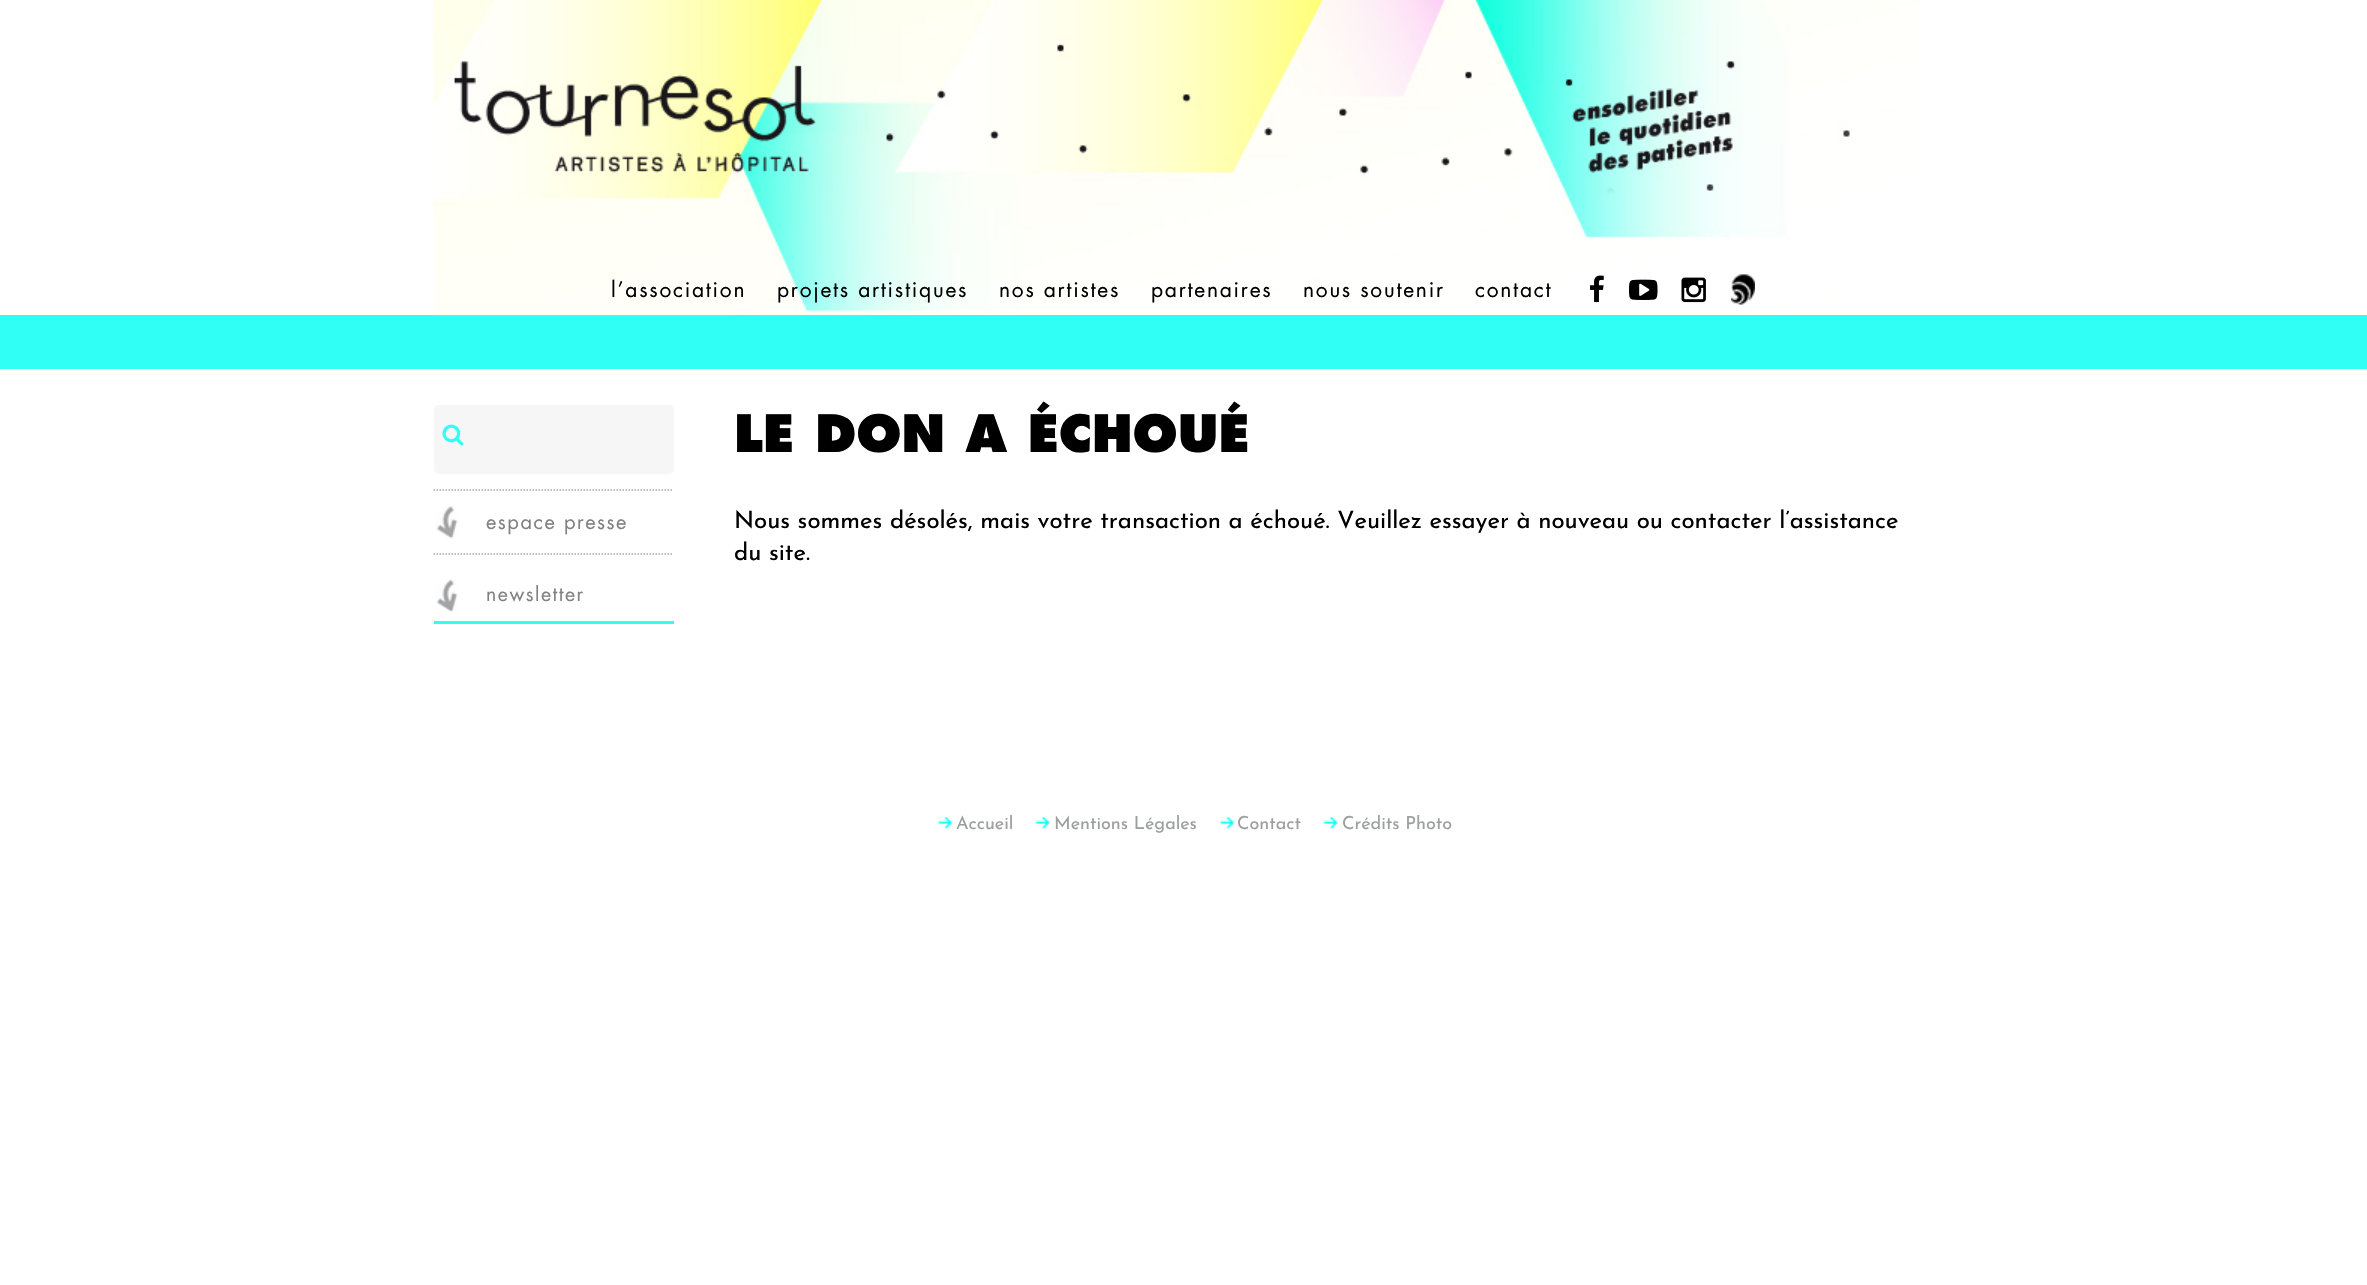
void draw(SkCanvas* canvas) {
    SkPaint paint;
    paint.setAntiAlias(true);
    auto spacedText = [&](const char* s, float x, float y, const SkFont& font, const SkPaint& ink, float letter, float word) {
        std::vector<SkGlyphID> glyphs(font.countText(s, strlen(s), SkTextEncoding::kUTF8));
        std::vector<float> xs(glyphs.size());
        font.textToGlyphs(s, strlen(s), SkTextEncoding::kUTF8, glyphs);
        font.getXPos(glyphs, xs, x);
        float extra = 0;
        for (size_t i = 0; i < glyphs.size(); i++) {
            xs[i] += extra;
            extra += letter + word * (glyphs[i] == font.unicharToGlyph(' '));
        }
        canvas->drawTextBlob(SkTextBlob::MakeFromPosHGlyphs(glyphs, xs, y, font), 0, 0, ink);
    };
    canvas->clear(0xFFFFFFFF);
    canvas->drawImageRect(SkImages::DeferredFromEncodedData(SkData::MakeFromFileName("img1.png")), SkRect::MakeXYWH(433, 0, 1488, 315), SkSamplingOptions());
    paint.setColor(0xFF30FFF5);
    canvas->drawRect(SkRect::MakeXYWH(0, 315, 2367, 54), paint);
    SkFont font1(fontMgr->matchFamilyStyle("Futura", SkFontStyle::Normal()), 21);
    font1.setSubpixel(true);
    paint.setColor(0xFF000000);
    spacedText("l’association", 611, 297, font1, paint, 1.75f, 0);
    spacedText("projets artistiques", 777, 297, font1, paint, 1.75f, 0);
    spacedText("nos artistes", 999, 297, font1, paint, 1.75f, 0);
    spacedText("partenaires", 1151, 297, font1, paint, 1.75f, 0);
    spacedText("nous soutenir", 1303, 297, font1, paint, 1.75f, 0);
    spacedText("contact", 1475, 297, font1, paint, 1.75f, 0);
    canvas->drawImageRect(SkImages::DeferredFromEncodedData(SkData::MakeFromFileName("img2.png")), SkRect::MakeXYWH(1590, 275, 14, 28), SkSamplingOptions());
    canvas->drawImageRect(SkImages::DeferredFromEncodedData(SkData::MakeFromFileName("img3.png")), SkRect::MakeXYWH(1629, 279, 29, 21), SkSamplingOptions());
    canvas->drawImageRect(SkImages::DeferredFromEncodedData(SkData::MakeFromFileName("img4.png")), SkRect::MakeXYWH(1681, 277, 25, 26), SkSamplingOptions());
    canvas->drawImageRect(SkImages::DeferredFromEncodedData(SkData::MakeFromFileName("img5.png")), SkRect::MakeXYWH(1731, 274, 24, 31), SkSamplingOptions());
    paint.setColor(0xFFF6F6F6);
    canvas->drawRoundRect(SkRect::MakeXYWH(434, 405, 240, 69), 5, 5, paint);
    canvas->drawImageRect(SkImages::DeferredFromEncodedData(SkData::MakeFromFileName("img6.png")), SkRect::MakeXYWH(442, 424, 22, 22), SkSamplingOptions());
    paint.setStyle(SkPaint::kStroke_Style);
    paint.setStrokeWidth(1.5f);
    paint.setColor(0xFFA8A8A8);
    paint.setPathEffect(SkDashPathEffect::Make({{1.5f, 1.5f}}, 0));
    canvas->drawPath(SkPathBuilder().moveTo(433.5f, 490).lineTo(673.5f, 490).detach(), paint);
    paint.setPathEffect(nullptr);
    canvas->drawImageRect(SkImages::DeferredFromEncodedData(SkData::MakeFromFileName("img7.png")), SkRect::MakeXYWH(436, 505, 22, 34), SkSamplingOptions());
    SkFont font2(fontMgr->matchFamilyStyle("Futura", SkFontStyle::Normal()), 20);
    font2.setSubpixel(true);
    paint.setStyle(SkPaint::kFill_Style);
    paint.setColor(0xFF818181);
    spacedText("espace presse", 486, 529, font2, paint, 1.5f, 0);
    paint.setStyle(SkPaint::kStroke_Style);
    paint.setColor(0xFFA8A8A8);
    paint.setPathEffect(SkDashPathEffect::Make({{1.5f, 1.5f}}, 0));
    canvas->drawPath(SkPathBuilder().moveTo(433.5f, 554).lineTo(673.5f, 554).detach(), paint);
    paint.setPathEffect(nullptr);
    canvas->drawImageRect(SkImages::DeferredFromEncodedData(SkData::MakeFromFileName("img8.png")), SkRect::MakeXYWH(436, 579, 22, 33), SkSamplingOptions());
    paint.setStyle(SkPaint::kFill_Style);
    paint.setColor(0xFF31FFF5);
    canvas->drawRect(SkRect::MakeXYWH(434, 621, 240, 3), paint);
    SkFont font3(fontMgr->matchFamilyStyle("Futura", SkFontStyle::Normal()), 19.5f);
    font3.setSubpixel(true);
    paint.setColor(0xFF818181);
    spacedText("newsletter", 486, 601, font3, paint, 1.5f, 0);
    SkFont font4(fontMgr->matchFamilyStyle("Futura", SkFontStyle(800, SkFontStyle::kNormal_Width, SkFontStyle::kUpright_Slant)), 50);
    font4.setSubpixel(true);
    paint.setColor(0xFF000000);
    canvas->drawString("LE DON A ÉCHOUÉ", 734, 452, font4, paint);
    SkFont font5(fontMgr->matchFamilyStyle("Josefin Sans", SkFontStyle::Normal()), 24);
    font5.setSubpixel(true);
    canvas->drawString("Nous sommes désolés, mais votre transaction a échoué. Veuillez essayer à nouveau ou contacter l’assistance", 734, 528, font5, paint);
    canvas->drawString("du site.", 734, 560, font5, paint);
    canvas->drawImageRect(SkImages::DeferredFromEncodedData(SkData::MakeFromFileName("img9.png")), SkRect::MakeXYWH(937, 816, 16, 14), SkSamplingOptions());
    SkFont font6(fontMgr->matchFamilyStyle("Josefin Sans", SkFontStyle::Normal()), 18);
    font6.setSubpixel(true);
    paint.setColor(0xFF9C9E9F);
    canvas->drawString("Accueil", 956, 829, font6, paint);
    canvas->drawImageRect(SkImages::DeferredFromEncodedData(SkData::MakeFromFileName("img10.png")), SkRect::MakeXYWH(1035, 816, 15, 14), SkSamplingOptions());
    canvas->drawString("Mentions Légales", 1054, 829, font6, paint);
    canvas->drawImageRect(SkImages::DeferredFromEncodedData(SkData::MakeFromFileName("img9.png")), SkRect::MakeXYWH(1219, 816, 16, 14), SkSamplingOptions());
    canvas->drawString("Contact", 1237, 829, font6, paint);
    canvas->drawImageRect(SkImages::DeferredFromEncodedData(SkData::MakeFromFileName("img10.png")), SkRect::MakeXYWH(1323, 816, 15, 14), SkSamplingOptions());
    canvas->drawString("Crédits Photo", 1342, 829, font6, paint);
}
